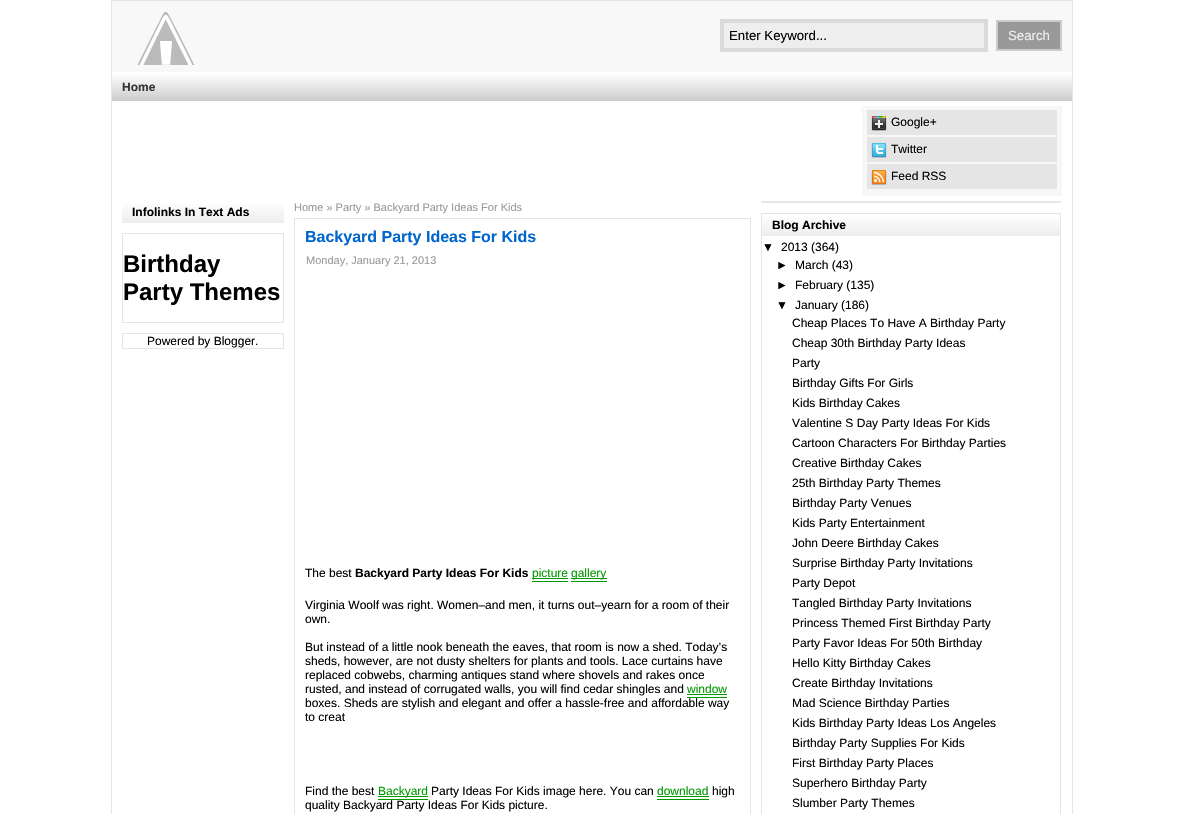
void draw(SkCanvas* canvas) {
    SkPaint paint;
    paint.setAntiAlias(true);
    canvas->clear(0xFFFFFFFF);
    paint.setColor(0xFFE5E5E5);
    canvas->drawRect(SkRect::MakeXYWH(111, 0, 962, 1), paint);
    canvas->drawRect(SkRect::MakeXYWH(1072, 0, 1, 814), paint);
    canvas->drawRect(SkRect::MakeXYWH(111, 0, 1, 814), paint);
    paint.setColor(0xFFF8F8F8);
    canvas->drawRect(SkRect::MakeXYWH(112, 1, 960, 71), paint);
    canvas->drawImageRect(SkImages::DeferredFromEncodedData(SkData::MakeFromFileName("img1.png")), SkRect::MakeXYWH(137, 12, 58, 53), SkSamplingOptions());
    paint.setColor(0xFFEEEEEE);
    canvas->drawRect(SkRect::MakeXYWH(722, 21, 264, 29), paint);
    paint.setStyle(SkPaint::kStroke_Style);
    paint.setStrokeWidth(4);
    paint.setColor(0xFFDADADA);
    canvas->drawRect(SkRect::MakeXYWH(722, 21, 264, 29), paint);
    SkFont font1(fontMgr->matchFamilyStyle("Liberation Sans", SkFontStyle::Normal()), 13.25f);
    font1.setSubpixel(true);
    paint.setStyle(SkPaint::kFill_Style);
    paint.setColor(0xFF000000);
    canvas->drawString("Enter Keyword...", 729, 40, font1, paint);
    paint.setColor(0xFF999999);
    canvas->drawRect(SkRect::MakeXYWH(997, 21, 64, 29), paint);
    paint.setStyle(SkPaint::kStroke_Style);
    paint.setStrokeWidth(2);
    paint.setColor(0xFFCCCCCC);
    canvas->drawRect(SkRect::MakeXYWH(997, 21, 64, 29), paint);
    paint.setStyle(SkPaint::kFill_Style);
    paint.setColor(0xFFEEEEEE);
    canvas->drawString("Search", 1008, 40, font1, paint);
    {
        const SkColor colors[] = {0xFFFFFFFF, 0xFFCCCCCC};
        const float stops[] = {0, 1};
        const SkPoint ends[] = {{112, 73}, {112, 101}};
        paint.setShader(SkGradientShader::MakeLinear(ends, colors, stops, 2, SkTileMode::kClamp));
        paint.setAlpha(255);
    }
    canvas->drawRect(SkRect::MakeXYWH(112, 74, 960, 27), paint);
    SkFont font2(fontMgr->matchFamilyStyle("Liberation Sans", SkFontStyle::Bold()), 12);
    font2.setSubpixel(true);
    paint.setShader(nullptr);
    paint.setColor(0xFF333333);
    canvas->drawString("Home", 122, 91, font2, paint);
    paint.setColor(0xFFF7F7F7);
    canvas->drawRect(SkRect::MakeXYWH(862, 106, 200, 90), paint);
    paint.setColor(0xFFE5E5E5);
    canvas->drawRect(SkRect::MakeXYWH(867, 110, 190, 25), paint);
    canvas->drawImageRect(SkImages::DeferredFromEncodedData(SkData::MakeFromFileName("img2.png")), SkRect::MakeXYWH(871, 116, 16, 15), SkSamplingOptions());
    SkFont font3(fontMgr->matchFamilyStyle("Liberation Sans", SkFontStyle::Normal()), 12);
    font3.setSubpixel(true);
    paint.setColor(0xFF000000);
    canvas->drawString("Google+", 891, 126, font3, paint);
    paint.setColor(0xFFE5E5E5);
    canvas->drawRect(SkRect::MakeXYWH(867, 137, 190, 25), paint);
    canvas->drawImageRect(SkImages::DeferredFromEncodedData(SkData::MakeFromFileName("img3.png")), SkRect::MakeXYWH(871, 143, 16, 15), SkSamplingOptions());
    paint.setColor(0xFF000000);
    canvas->drawString("Twitter", 891, 153, font3, paint);
    paint.setColor(0xFFE5E5E5);
    canvas->drawRect(SkRect::MakeXYWH(867, 164, 190, 25), paint);
    canvas->drawImageRect(SkImages::DeferredFromEncodedData(SkData::MakeFromFileName("img4.png")), SkRect::MakeXYWH(871, 170, 16, 15), SkSamplingOptions());
    paint.setColor(0xFF000000);
    canvas->drawString("Feed RSS", 891, 180, font3, paint);
    {
        const SkColor colors[] = {0xFFFFFFFF, 0xFFEDEDED};
        const float stops[] = {0, 1};
        const SkPoint ends[] = {{122, 201}, {122, 223}};
        paint.setShader(SkGradientShader::MakeLinear(ends, colors, stops, 2, SkTileMode::kClamp));
        paint.setAlpha(255);
    }
    canvas->drawRect(SkRect::MakeXYWH(122, 204, 162, 19), paint);
    paint.setShader(nullptr);
    paint.setColor(0xFF000000);
    canvas->drawString("Infolinks In Text Ads", 132, 216, font2, paint);
    paint.setStyle(SkPaint::kStroke_Style);
    paint.setStrokeWidth(1);
    paint.setColor(0xFFE5E5E5);
    canvas->drawRect(SkRect::MakeXYWH(122.5f, 233.5f, 161, 89), paint);
    SkFont font4(fontMgr->matchFamilyStyle("Liberation Sans", SkFontStyle::Bold()), 24);
    font4.setSubpixel(true);
    paint.setStyle(SkPaint::kFill_Style);
    paint.setColor(0xFF000000);
    canvas->drawString("Birthday", 123, 272, font4, paint);
    canvas->drawString("Party Themes", 123, 300, font4, paint);
    paint.setStyle(SkPaint::kStroke_Style);
    paint.setColor(0xFFE5E5E5);
    canvas->drawRect(SkRect::MakeXYWH(122.5f, 333.5f, 161, 15), paint);
    paint.setStyle(SkPaint::kFill_Style);
    paint.setColor(0xFF000000);
    canvas->drawString("Powered by Blogger.", 147, 345, font3, paint);
    SkFont font5(fontMgr->matchFamilyStyle("Liberation Sans", SkFontStyle::Normal()), 11);
    font5.setSubpixel(true);
    paint.setColor(0xFF999999);
    canvas->drawString("Home » Party » Backyard Party Ideas For Kids", 294, 211, font5, paint);
    paint.setStyle(SkPaint::kStroke_Style);
    paint.setColor(0xFFE5E5E5);
    canvas->drawRect(SkRect::MakeXYWH(294.5f, 218.5f, 456, 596), paint);
    SkFont font6(fontMgr->matchFamilyStyle("Liberation Sans", SkFontStyle::Bold()), 16);
    font6.setSubpixel(true);
    paint.setStyle(SkPaint::kFill_Style);
    paint.setColor(0xFF0066CC);
    canvas->drawString("Backyard Party Ideas For Kids", 305, 242, font6, paint);
    paint.setColor(0xFF999999);
    canvas->drawString("Monday, January 21, 2013", 306, 264, font5, paint);
    paint.setColor(0xFF000000);
    canvas->drawString("The best", 305, 577, font3, paint);
    canvas->drawString("Backyard Party Ideas For Kids", 355, 577, font2, paint);
    paint.setColor(0xFF009900);
    canvas->drawRect(SkRect::MakeXYWH(532, 578, 36, 1), paint);
    canvas->drawString("picture", 532, 577, font3, paint);
    canvas->drawRect(SkRect::MakeXYWH(532, 581, 36, 1), paint);
    canvas->drawRect(SkRect::MakeXYWH(571, 578, 36, 1), paint);
    canvas->drawString("gallery", 571, 577, font3, paint);
    canvas->drawRect(SkRect::MakeXYWH(571, 581, 36, 1), paint);
    paint.setColor(0xFF000000);
    canvas->drawString("Virginia Woolf was right. Women–and men, it turns out–yearn for a room of their", 305, 609, font3, paint);
    canvas->drawString("own.", 305, 623, font3, paint);
    canvas->drawString("But instead of a little nook beneath the eaves, that room is now a shed. Today’s", 305, 651, font3, paint);
    canvas->drawString("sheds, however, are not dusty shelters for plants and tools. Lace curtains have", 305, 665, font3, paint);
    canvas->drawString("replaced cobwebs, charming antiques stand where shovels and rakes once", 305, 679, font3, paint);
    canvas->drawString("rusted, and instead of corrugated walls, you will find cedar shingles and", 305, 693, font3, paint);
    paint.setColor(0xFF009900);
    canvas->drawString("window", 687, 693, font3, paint);
    canvas->drawRect(SkRect::MakeXYWH(687, 697, 40, 1), paint);
    canvas->drawRect(SkRect::MakeXYWH(687, 694, 40, 1), paint);
    paint.setColor(0xFF000000);
    canvas->drawString("boxes. Sheds are stylish and elegant and offer a hassle-free and affordable way", 305, 707, font3, paint);
    canvas->drawString("to creat", 305, 721, font3, paint);
    canvas->drawString("Find the best", 305, 795, font3, paint);
    paint.setColor(0xFF009900);
    canvas->drawRect(SkRect::MakeXYWH(378, 796, 50, 1), paint);
    canvas->drawString("Backyard", 378, 795, font3, paint);
    canvas->drawRect(SkRect::MakeXYWH(378, 799, 50, 1), paint);
    paint.setColor(0xFF000000);
    canvas->drawString("Party Ideas For Kids image here. You can", 431, 795, font3, paint);
    paint.setColor(0xFF009900);
    canvas->drawString("download", 657, 795, font3, paint);
    canvas->drawRect(SkRect::MakeXYWH(657, 799, 52, 1), paint);
    canvas->drawRect(SkRect::MakeXYWH(657, 796, 52, 1), paint);
    paint.setColor(0xFF000000);
    canvas->drawString("high", 712, 795, font3, paint);
    canvas->drawString("quality Backyard Party Ideas For Kids picture.", 305, 809, font3, paint);
    paint.setColor(0xFFE5E5E5);
    canvas->drawRect(SkRect::MakeXYWH(761, 201, 300, 2), paint);
    paint.setStyle(SkPaint::kStroke_Style);
    canvas->drawRect(SkRect::MakeXYWH(761.5f, 213.5f, 299, 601), paint);
    paint.setStyle(SkPaint::kFill_Style);
    {
        const SkColor colors[] = {0xFFFFFFFF, 0xFFEDEDED};
        const float stops[] = {0, 1};
        const SkPoint ends[] = {{762, 214}, {762, 236}};
        paint.setShader(SkGradientShader::MakeLinear(ends, colors, stops, 2, SkTileMode::kClamp));
        paint.setAlpha(255);
    }
    canvas->drawRect(SkRect::MakeXYWH(762, 217, 298, 19), paint);
    paint.setShader(nullptr);
    paint.setColor(0xFF000000);
    canvas->drawString("Blog Archive", 772, 229, font2, paint);
    canvas->drawString("▼", 762, 251, font3, paint);
    canvas->drawString("2013 (364)", 781, 251, font3, paint);
    canvas->drawString("►", 776, 269, font3, paint);
    canvas->drawString("March (43)", 795, 269, font3, paint);
    canvas->drawString("►", 776, 289, font3, paint);
    canvas->drawString("February (135)", 795, 289, font3, paint);
    canvas->drawString("▼", 776, 309, font3, paint);
    canvas->drawString("January (186)", 795, 309, font3, paint);
    canvas->drawString("Cheap Places To Have A Birthday Party", 792, 327, font3, paint);
    canvas->drawString("Cheap 30th Birthday Party Ideas", 792, 347, font3, paint);
    canvas->drawString("Party", 792, 367, font3, paint);
    canvas->drawString("Birthday Gifts For Girls", 792, 387, font3, paint);
    canvas->drawString("Kids Birthday Cakes", 792, 407, font3, paint);
    canvas->drawString("Valentine S Day Party Ideas For Kids", 792, 427, font3, paint);
    canvas->drawString("Cartoon Characters For Birthday Parties", 792, 447, font3, paint);
    canvas->drawString("Creative Birthday Cakes", 792, 467, font3, paint);
    canvas->drawString("25th Birthday Party Themes", 792, 487, font3, paint);
    canvas->drawString("Birthday Party Venues", 792, 507, font3, paint);
    canvas->drawString("Kids Party Entertainment", 792, 527, font3, paint);
    canvas->drawString("John Deere Birthday Cakes", 792, 547, font3, paint);
    canvas->drawString("Surprise Birthday Party Invitations", 792, 567, font3, paint);
    canvas->drawString("Party Depot", 792, 587, font3, paint);
    canvas->drawString("Tangled Birthday Party Invitations", 792, 607, font3, paint);
    canvas->drawString("Princess Themed First Birthday Party", 792, 627, font3, paint);
    canvas->drawString("Party Favor Ideas For 50th Birthday", 792, 647, font3, paint);
    canvas->drawString("Hello Kitty Birthday Cakes", 792, 667, font3, paint);
    canvas->drawString("Create Birthday Invitations", 792, 687, font3, paint);
    canvas->drawString("Mad Science Birthday Parties", 792, 707, font3, paint);
    canvas->drawString("Kids Birthday Party Ideas Los Angeles", 792, 727, font3, paint);
    canvas->drawString("Birthday Party Supplies For Kids", 792, 747, font3, paint);
    canvas->drawString("First Birthday Party Places", 792, 767, font3, paint);
    canvas->drawString("Superhero Birthday Party", 792, 787, font3, paint);
    canvas->drawString("Slumber Party Themes", 792, 807, font3, paint);
}
